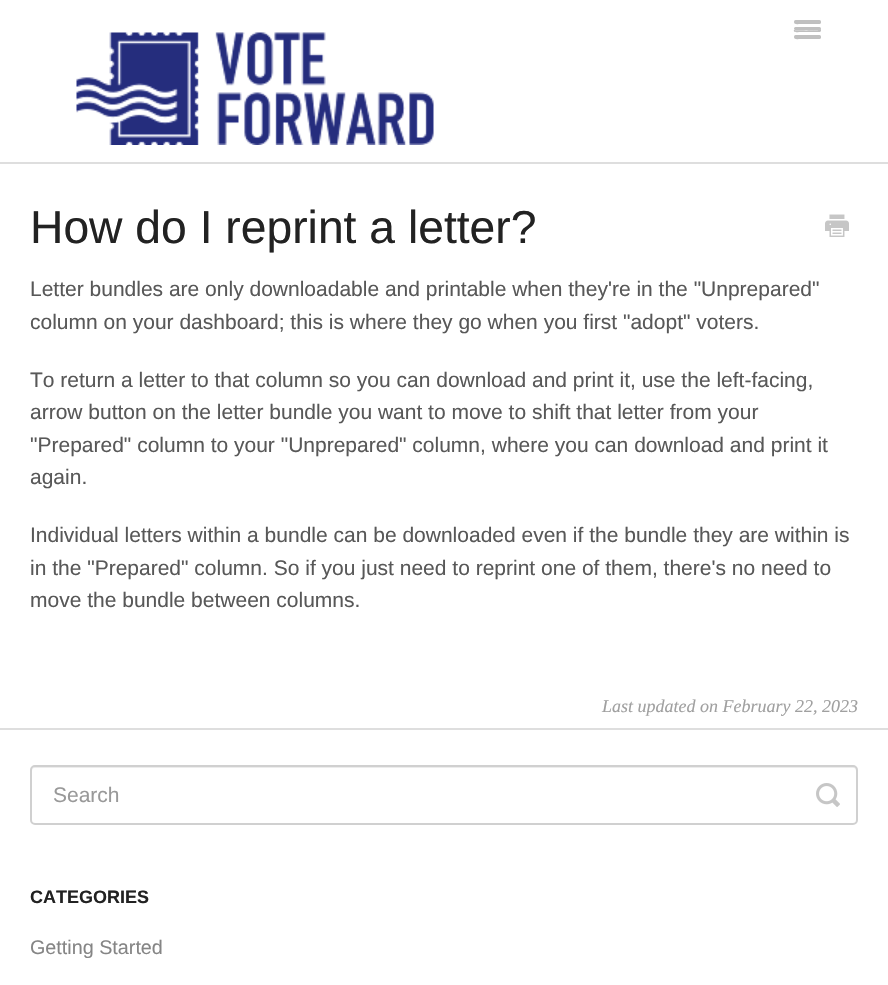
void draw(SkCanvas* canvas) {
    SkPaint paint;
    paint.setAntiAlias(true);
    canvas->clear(0xFFFFFFFF);
    paint.setColor(0xFFBFBFBF);
    canvas->drawPath(SkPathBuilder().moveTo(794, 22).cubicTo(793.5f, 25, 799, 24, 799.5f, 24).lineTo(819.5f, 24).cubicTo(821, 24, 821.5f, 22, 820.5f, 21.5f).lineTo(819.5f, 22.5f).cubicTo(818, 23, 794.5f, 22.5f, 794, 22).close().detach(), paint);
    paint.setColor(0xFFC0C0C0);
    canvas->drawRoundRect(SkRect::MakeXYWH(794, 20, 27, 3), 1.5f, 1.5f, paint);
    paint.setColor(0xFFBFBFBF);
    canvas->drawPath(SkPathBuilder().moveTo(794, 30).cubicTo(792.5f, 33, 799.5f, 32, 799.5f, 32).lineTo(820, 32).cubicTo(821, 31.5f, 821.5f, 30, 820.5f, 29).lineTo(819, 30).cubicTo(817, 30.5f, 795, 30.5f, 794, 30).close().detach(), paint);
    paint.setColor(0xFFC0C0C0);
    canvas->drawRoundRect(SkRect::MakeXYWH(794, 27, 27, 3), 1.5f, 1.5f, paint);
    paint.setColor(0xFFBFBFBF);
    canvas->drawPath(SkPathBuilder().moveTo(794, 37).cubicTo(793.5f, 40, 799, 39, 799.5f, 39).lineTo(819.5f, 39).cubicTo(821, 39, 821.5f, 37, 820.5f, 36.5f).lineTo(819.5f, 37.5f).cubicTo(818, 38, 794.5f, 37.5f, 794, 37).close().detach(), paint);
    paint.setColor(0xFFC0C0C0);
    canvas->drawRoundRect(SkRect::MakeXYWH(794, 35, 27, 3), 1.5f, 1.5f, paint);
    canvas->drawImageRect(SkImages::DeferredFromEncodedData(SkData::MakeFromFileName("img1.png")), SkRect::MakeXYWH(76, 32, 358, 113), SkSamplingOptions());
    paint.setColor(0xFFDEDEDE);
    canvas->drawRect(SkRect::MakeXYWH(0, 162, 888, 2), paint);
    canvas->drawRect(SkRect::MakeXYWH(0, 728, 888, 2), paint);
    SkFont font1(fontMgr->matchFamilyStyle("Liberation Sans", SkFontStyle::Normal()), 46.25f);
    font1.setSubpixel(true);
    paint.setColor(0xFF222222);
    canvas->drawString("How do I reprint a letter?", 30, 243, font1, paint);
    canvas->drawImageRect(SkImages::DeferredFromEncodedData(SkData::MakeFromFileName("img2.png")), SkRect::MakeXYWH(825, 214, 24, 23), SkSamplingOptions());
    SkFont font2(fontMgr->matchFamilyStyle("Liberation Sans", SkFontStyle::Normal()), 21);
    font2.setSubpixel(true);
    paint.setColor(0xFF585858);
    canvas->drawString("Letter bundles are only downloadable and printable when they're in the \"Unprepared\"", 30, 296, font2, paint);
    canvas->drawString("column on your dashboard; this is where they go when you first \"adopt\" voters.", 30, 329, font2, paint);
    canvas->drawString("To return a letter to that column so you can download and print it, use the left-facing,", 30, 387, font2, paint);
    canvas->drawString("arrow button on the letter bundle you want to move to shift that letter from your", 30, 419, font2, paint);
    canvas->drawString("\"Prepared\" column to your \"Unprepared\" column, where you can download and print it", 30, 452, font2, paint);
    canvas->drawString("again.", 30, 484, font2, paint);
    canvas->drawString("Individual letters within a bundle can be downloaded even if the bundle they are within is", 30, 542, font2, paint);
    canvas->drawString("in the \"Prepared\" column. So if you just need to reprint one of them, there's no need to", 30, 575, font2, paint);
    canvas->drawString("move the bundle between columns.", 30, 607, font2, paint);
    SkFont font3(fontMgr->matchFamilyStyle("Liberation Serif", SkFontStyle::Italic()), 18);
    font3.setSubpixel(true);
    paint.setColor(0xFFA0A0A0);
    canvas->drawString("Last updated on February 22, 2023", 602, 712, font3, paint);
    paint.setColor(0xFFECECEC);
    canvas->drawPath(SkPathBuilder().moveTo(34, 768).lineTo(854, 768).cubicTo(855, 768, 856, 769, 856, 771).lineTo(856, 823).cubicTo(857, 823, 857, 822, 857, 821).lineTo(857, 770).cubicTo(857, 768, 856, 767, 854, 767).lineTo(35, 767).cubicTo(33, 767, 32, 768, 32, 770).lineTo(32, 771).cubicTo(32, 769, 33, 768, 34, 768).close().detach(), paint);
    paint.setStyle(SkPaint::kStroke_Style);
    paint.setStrokeWidth(2);
    paint.setColor(0xFFD0D0D0);
    canvas->drawRoundRect(SkRect::MakeXYWH(31, 766, 826, 58), 4, 4, paint);
    paint.setStyle(SkPaint::kFill_Style);
    paint.setColor(0xFF999999);
    canvas->drawString("Search", 53, 802, font2, paint);
    canvas->drawImageRect(SkImages::DeferredFromEncodedData(SkData::MakeFromFileName("img3.png")), SkRect::MakeXYWH(816, 783, 24, 24), SkSamplingOptions());
    SkFont font4(fontMgr->matchFamilyStyle("Liberation Sans", SkFontStyle::Bold()), 18);
    font4.setSubpixel(true);
    paint.setColor(0xFF222222);
    canvas->drawString("CATEGORIES", 30, 903, font4, paint);
    SkFont font5(fontMgr->matchFamilyStyle("Liberation Sans", SkFontStyle::Normal()), 19.75f);
    font5.setSubpixel(true);
    paint.setColor(0xFF858585);
    canvas->drawString("Getting Started", 30, 954, font5, paint);
}
